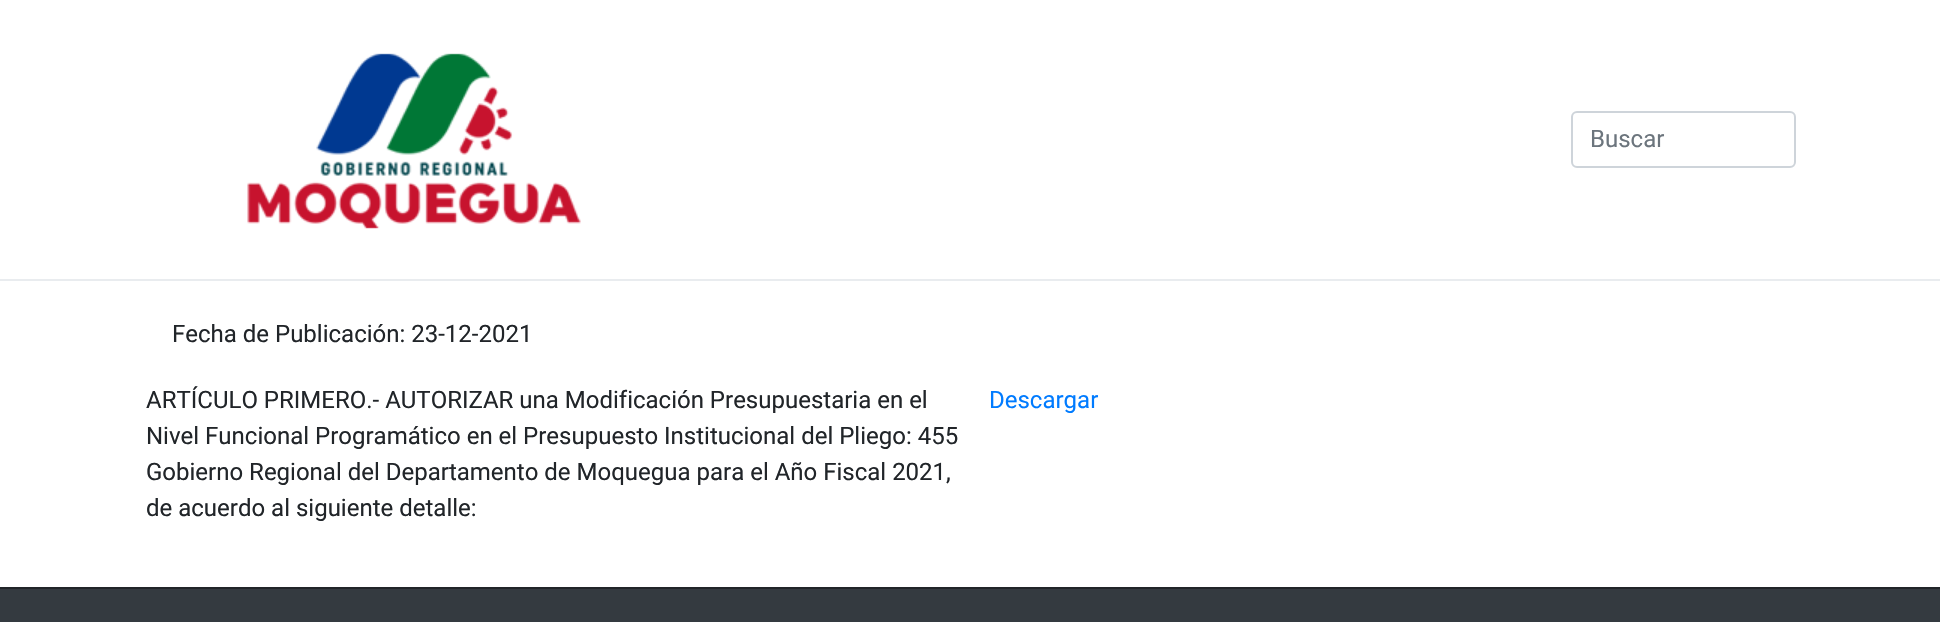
void draw(SkCanvas* canvas) {
    SkPaint paint;
    paint.setAntiAlias(true);
    canvas->clear(0xFFFFFFFF);
    paint.setColor(0xFFE9ECEF);
    canvas->drawRect(SkRect::MakeXYWH(0, 279, 1940, 2), paint);
    canvas->drawImageRect(SkImages::DeferredFromEncodedData(SkData::MakeFromFileName("img1.png")), SkRect::MakeXYWH(247, 53, 334, 176), SkSamplingOptions());
    paint.setStyle(SkPaint::kStroke_Style);
    paint.setStrokeWidth(2);
    paint.setColor(0xFFCED4DA);
    canvas->drawRoundRect(SkRect::MakeXYWH(1572, 112, 223, 55), 5, 5, paint);
    SkFont font1(fontMgr->matchFamilyStyle("Roboto", SkFontStyle::Normal()), 24);
    font1.setSubpixel(true);
    paint.setStyle(SkPaint::kFill_Style);
    paint.setColor(0xFF6C757D);
    canvas->drawString("Buscar", 1590, 147, font1, paint);
    paint.setColor(0xFF212529);
    canvas->drawString("Fecha de Publicación: 23-12-2021", 172, 342, font1, paint);
    canvas->drawString("ARTÍCULO PRIMERO.- AUTORIZAR una Modificación Presupuestaria en el", 146, 408, font1, paint);
    canvas->drawString("Nivel Funcional Programático en el Presupuesto Institucional del Pliego: 455", 146, 444, font1, paint);
    canvas->drawString("Gobierno Regional del Departamento de Moquegua para el Año Fiscal 2021,", 146, 480, font1, paint);
    canvas->drawString("de acuerdo al siguiente detalle:", 146, 516, font1, paint);
    paint.setColor(0xFF007BFF);
    canvas->drawString("Descargar", 989, 408, font1, paint);
    paint.setColor(0xFF343A40);
    canvas->drawRect(SkRect::MakeXYWH(0, 589, 1940, 33), paint);
    paint.setColor(0xFF212529);
    canvas->drawRect(SkRect::MakeXYWH(0, 587, 1940, 2), paint);
}
